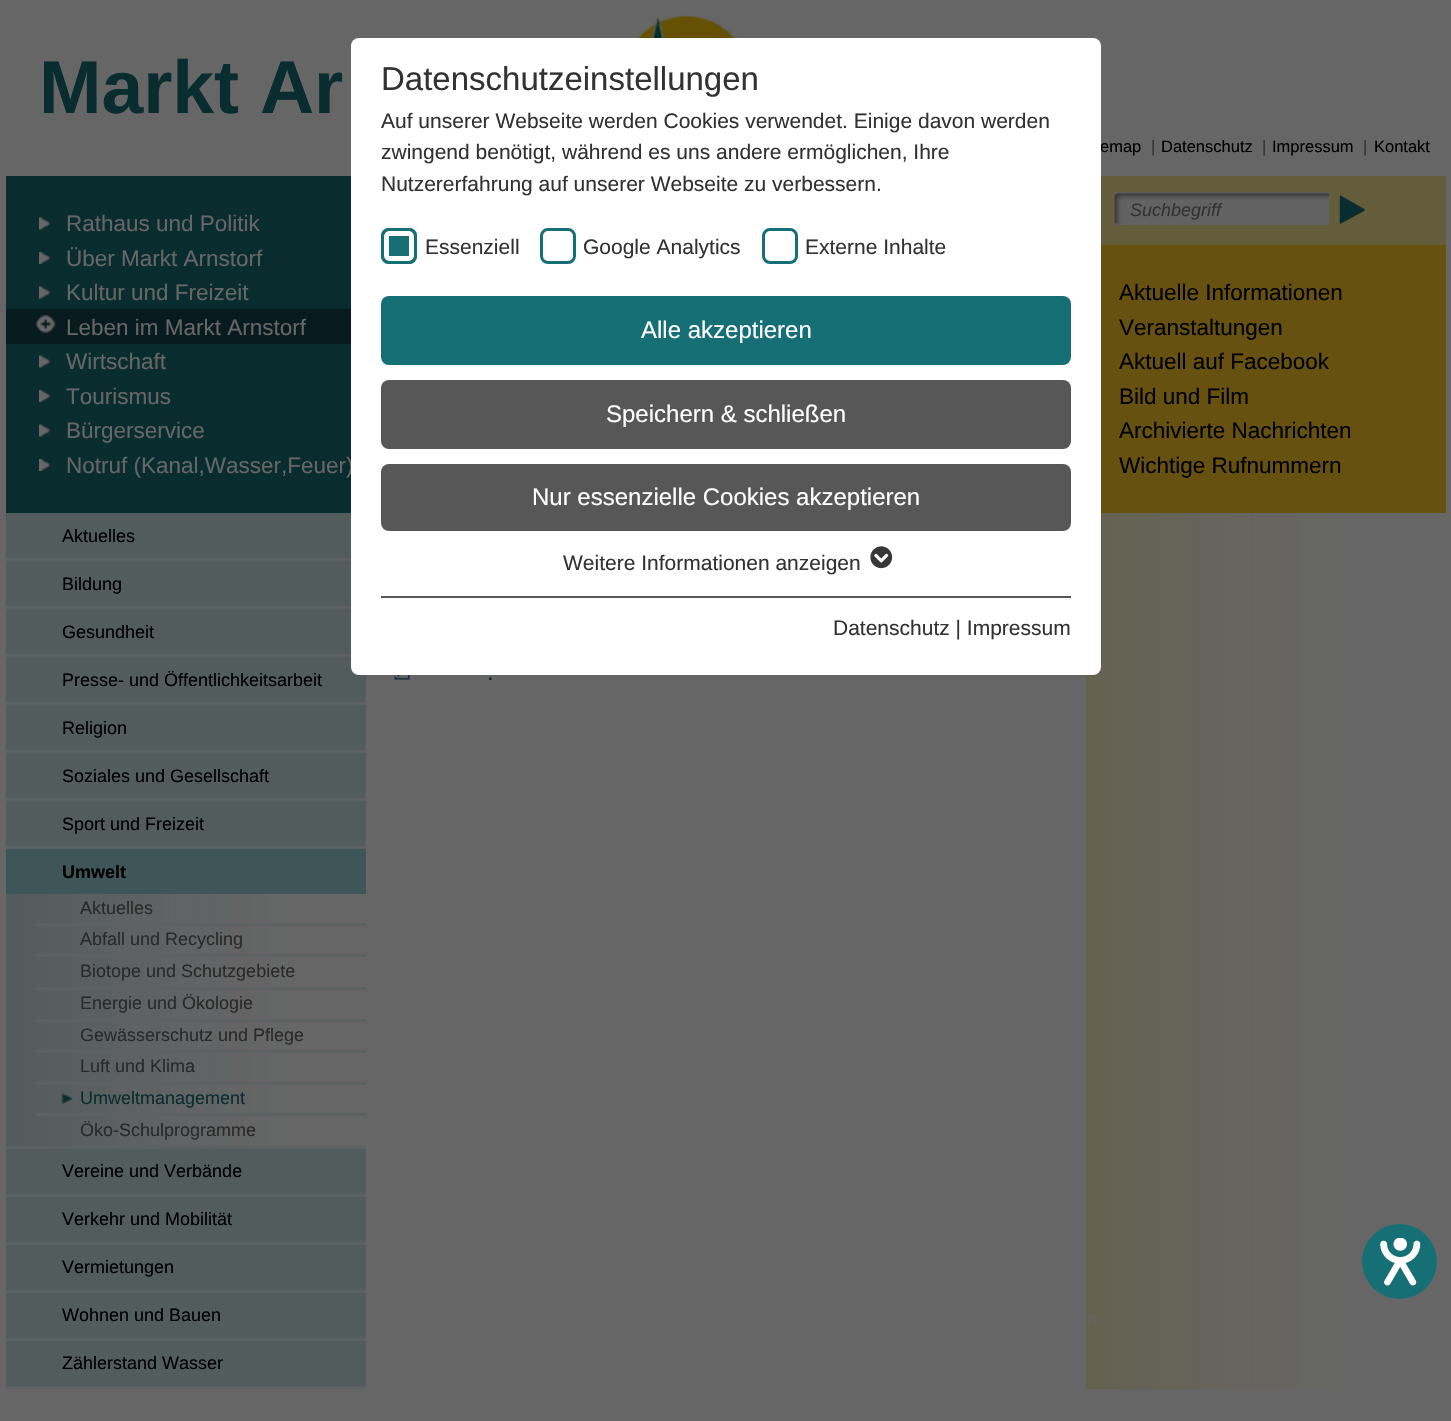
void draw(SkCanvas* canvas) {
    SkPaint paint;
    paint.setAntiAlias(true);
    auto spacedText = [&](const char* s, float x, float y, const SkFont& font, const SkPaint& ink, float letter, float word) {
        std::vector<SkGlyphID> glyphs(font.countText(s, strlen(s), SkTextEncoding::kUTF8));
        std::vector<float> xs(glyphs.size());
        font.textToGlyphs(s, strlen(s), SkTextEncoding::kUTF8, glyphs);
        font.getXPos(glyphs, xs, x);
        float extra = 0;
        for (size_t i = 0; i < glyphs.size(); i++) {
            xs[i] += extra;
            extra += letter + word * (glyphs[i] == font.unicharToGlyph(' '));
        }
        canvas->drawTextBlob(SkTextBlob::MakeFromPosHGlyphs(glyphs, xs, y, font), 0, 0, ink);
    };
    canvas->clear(0xFF666666);
    canvas->drawImageRect(SkImages::DeferredFromEncodedData(SkData::MakeFromFileName("img1.png")), SkRect::MakeXYWH(573, 15, 231, 23), SkSamplingOptions());
    SkFont font1(fontMgr->matchFamilyStyle("Liberation Sans", SkFontStyle::Bold()), 75);
    font1.setSubpixel(true);
    paint.setColor(0xFF092C2F);
    canvas->drawString("Markt Ar", 39, 113, font1, paint);
    SkFont font2(fontMgr->matchFamilyStyle("Liberation Sans", SkFontStyle::Normal()), 16.5f);
    font2.setSubpixel(true);
    paint.setColor(0xFF000000);
    canvas->drawString("emap", 1100, 152, font2, paint);
    paint.setColor(0xFF323232);
    canvas->drawString("|", 1151, 152, font2, paint);
    paint.setColor(0xFF000000);
    canvas->drawString("Datenschutz", 1161, 152, font2, paint);
    paint.setColor(0xFF323232);
    canvas->drawString("|", 1262, 152, font2, paint);
    paint.setColor(0xFF000000);
    canvas->drawString("Impressum", 1272, 152, font2, paint);
    paint.setColor(0xFF323232);
    canvas->drawString("|", 1363, 152, font2, paint);
    paint.setColor(0xFF000000);
    canvas->drawString("Kontakt", 1374, 152, font2, paint);
    paint.setColor(0xFF092C2F);
    canvas->drawRect(SkRect::MakeXYWH(6, 176, 345, 337), paint);
    canvas->drawImageRect(SkImages::DeferredFromEncodedData(SkData::MakeFromFileName("img2.png")), SkRect::MakeXYWH(39, 217, 12, 13), SkSamplingOptions());
    SkFont font3(fontMgr->matchFamilyStyle("Liberation Sans", SkFontStyle::Normal()), 22.5f);
    font3.setSubpixel(true);
    paint.setColor(0xFF666666);
    canvas->drawString("Rathaus und Politik", 66, 231, font3, paint);
    canvas->drawImageRect(SkImages::DeferredFromEncodedData(SkData::MakeFromFileName("img3.png")), SkRect::MakeXYWH(39, 252, 12, 12), SkSamplingOptions());
    canvas->drawString("Über Markt Arnstorf", 66, 266, font3, paint);
    canvas->drawImageRect(SkImages::DeferredFromEncodedData(SkData::MakeFromFileName("img2.png")), SkRect::MakeXYWH(39, 286, 12, 13), SkSamplingOptions());
    canvas->drawString("Kultur und Freizeit", 66, 300, font3, paint);
    paint.setColor(0xFF071A1D);
    canvas->drawRect(SkRect::MakeXYWH(6, 309, 345, 35), paint);
    canvas->drawImageRect(SkImages::DeferredFromEncodedData(SkData::MakeFromFileName("img4.png")), SkRect::MakeXYWH(36, 315, 20, 18), SkSamplingOptions());
    paint.setColor(0xFF666666);
    canvas->drawString("Leben im Markt Arnstorf", 66, 335, font3, paint);
    canvas->drawImageRect(SkImages::DeferredFromEncodedData(SkData::MakeFromFileName("img2.png")), SkRect::MakeXYWH(39, 355, 12, 13), SkSamplingOptions());
    canvas->drawString("Wirtschaft", 66, 369, font3, paint);
    canvas->drawImageRect(SkImages::DeferredFromEncodedData(SkData::MakeFromFileName("img3.png")), SkRect::MakeXYWH(39, 390, 12, 12), SkSamplingOptions());
    canvas->drawString("Tourismus", 66, 404, font3, paint);
    canvas->drawImageRect(SkImages::DeferredFromEncodedData(SkData::MakeFromFileName("img2.png")), SkRect::MakeXYWH(39, 424, 12, 13), SkSamplingOptions());
    canvas->drawString("Bürgerservice", 66, 438, font3, paint);
    canvas->drawImageRect(SkImages::DeferredFromEncodedData(SkData::MakeFromFileName("img3.png")), SkRect::MakeXYWH(39, 459, 12, 12), SkSamplingOptions());
    canvas->drawString("Notruf (Kanal,Wasser,Feuer)", 66, 473, font3, paint);
    paint.setColor(0xFF525C5D);
    canvas->drawRect(SkRect::MakeXYWH(6, 513, 360, 873), paint);
    paint.setColor(0xFF5C6162);
    canvas->drawRect(SkRect::MakeXYWH(6, 558, 345, 3), paint);
    SkFont font4(fontMgr->matchFamilyStyle("Liberation Sans", SkFontStyle::Normal()), 18);
    font4.setSubpixel(true);
    paint.setColor(0xFF000000);
    canvas->drawString("Aktuelles", 62, 542, font4, paint);
    paint.setColor(0xFF5C6162);
    canvas->drawRect(SkRect::MakeXYWH(6, 606, 345, 3), paint);
    paint.setColor(0xFF000000);
    canvas->drawString("Bildung", 62, 590, font4, paint);
    paint.setColor(0xFF5C6162);
    canvas->drawRect(SkRect::MakeXYWH(6, 654, 345, 3), paint);
    paint.setColor(0xFF000000);
    canvas->drawString("Gesundheit", 62, 638, font4, paint);
    paint.setColor(0xFF5C6162);
    canvas->drawRect(SkRect::MakeXYWH(6, 702, 360, 3), paint);
    paint.setColor(0xFF000000);
    canvas->drawString("Presse- und Öffentlichkeitsarbeit", 62, 686, font4, paint);
    paint.setColor(0xFF5C6162);
    canvas->drawRect(SkRect::MakeXYWH(6, 750, 360, 3), paint);
    paint.setColor(0xFF000000);
    canvas->drawString("Religion", 62, 734, font4, paint);
    paint.setColor(0xFF5C6162);
    canvas->drawRect(SkRect::MakeXYWH(6, 798, 360, 3), paint);
    paint.setColor(0xFF000000);
    canvas->drawString("Soziales und Gesellschaft", 62, 782, font4, paint);
    paint.setColor(0xFF5C6162);
    canvas->drawRect(SkRect::MakeXYWH(6, 846, 360, 3), paint);
    paint.setColor(0xFF000000);
    canvas->drawString("Sport und Freizeit", 62, 830, font4, paint);
    paint.setColor(0xFF5C6162);
    canvas->drawRect(SkRect::MakeXYWH(6, 1146, 360, 3), paint);
    paint.setColor(0xFF3E5658);
    canvas->drawRect(SkRect::MakeXYWH(6, 849, 360, 45), paint);
    SkFont font5(fontMgr->matchFamilyStyle("Liberation Sans", SkFontStyle::Bold()), 18);
    font5.setSubpixel(true);
    paint.setColor(0xFF000000);
    canvas->drawString("Umwelt", 62, 878, font5, paint);
    canvas->drawImageRect(SkImages::DeferredFromEncodedData(SkData::MakeFromFileName("img5.png")), SkRect::MakeXYWH(18, 894, 348, 252), SkSamplingOptions());
    paint.setColor(0xFF292929);
    canvas->drawString("Aktuelles", 80, 914, font4, paint);
    paint.setColor(0xFF5C6162);
    canvas->drawRect(SkRect::MakeXYWH(36, 923, 330, 3), paint);
    paint.setColor(0xFF292929);
    canvas->drawString("Abfall und Recycling", 80, 945, font4, paint);
    paint.setColor(0xFF5C6162);
    canvas->drawRect(SkRect::MakeXYWH(36, 954, 330, 3), paint);
    paint.setColor(0xFF292929);
    canvas->drawString("Biotope und Schutzgebiete", 80, 977, font4, paint);
    paint.setColor(0xFF5C6162);
    canvas->drawRect(SkRect::MakeXYWH(36, 987, 330, 3), paint);
    paint.setColor(0xFF292929);
    canvas->drawString("Energie und Ökologie", 80, 1009, font4, paint);
    paint.setColor(0xFF5C6162);
    canvas->drawRect(SkRect::MakeXYWH(36, 1019, 330, 3), paint);
    paint.setColor(0xFF292929);
    canvas->drawString("Gewässerschutz und Pflege", 80, 1041, font4, paint);
    paint.setColor(0xFF5C6162);
    canvas->drawRect(SkRect::MakeXYWH(36, 1050, 330, 3), paint);
    paint.setColor(0xFF292929);
    canvas->drawString("Luft und Klima", 80, 1072, font4, paint);
    paint.setColor(0xFF5C6162);
    canvas->drawRect(SkRect::MakeXYWH(36, 1082, 330, 3), paint);
    canvas->drawImageRect(SkImages::DeferredFromEncodedData(SkData::MakeFromFileName("img6.png")), SkRect::MakeXYWH(61, 1093, 12, 11), SkSamplingOptions());
    paint.setColor(0xFF092C2F);
    canvas->drawString("Umweltmanagement", 80, 1104, font4, paint);
    paint.setColor(0xFF5C6162);
    canvas->drawRect(SkRect::MakeXYWH(36, 1113, 330, 3), paint);
    paint.setColor(0xFF292929);
    canvas->drawString("Öko-Schulprogramme", 80, 1136, font4, paint);
    paint.setColor(0xFF5C6162);
    canvas->drawRect(SkRect::MakeXYWH(6, 1194, 360, 3), paint);
    paint.setColor(0xFF000000);
    canvas->drawString("Vereine und Verbände", 62, 1177, font4, paint);
    paint.setColor(0xFF5C6162);
    canvas->drawRect(SkRect::MakeXYWH(6, 1242, 360, 3), paint);
    paint.setColor(0xFF000000);
    canvas->drawString("Verkehr und Mobilität", 62, 1225, font4, paint);
    paint.setColor(0xFF5C6162);
    canvas->drawRect(SkRect::MakeXYWH(6, 1290, 360, 3), paint);
    paint.setColor(0xFF000000);
    canvas->drawString("Vermietungen", 62, 1273, font4, paint);
    paint.setColor(0xFF5C6162);
    canvas->drawRect(SkRect::MakeXYWH(6, 1338, 360, 3), paint);
    paint.setColor(0xFF000000);
    canvas->drawString("Wohnen und Bauen", 62, 1321, font4, paint);
    paint.setColor(0xFF5C6162);
    canvas->drawRect(SkRect::MakeXYWH(6, 1386, 360, 3), paint);
    paint.setColor(0xFF000000);
    canvas->drawString("Zählerstand Wasser", 62, 1369, font4, paint);
    canvas->drawImageRect(SkImages::DeferredFromEncodedData(SkData::MakeFromFileName("img7.png")), SkRect::MakeXYWH(394, 675, 16, 5), SkSamplingOptions());
    SkFont font6(fontMgr->matchFamilyStyle("Liberation Sans", SkFontStyle::Bold()), 16.5f);
    font6.setSubpixel(true);
    paint.setColor(0xFF092C2F);
    canvas->drawString(".", 488, 680, font6, paint);
    paint.setColor(0xFF645D3C);
    canvas->drawRect(SkRect::MakeXYWH(1101, 176, 345, 69), paint);
    canvas->drawImageRect(SkImages::DeferredFromEncodedData(SkData::MakeFromFileName("img8.png")), SkRect::MakeXYWH(1114, 192, 215, 33), SkSamplingOptions());
    SkFont font7(fontMgr->matchFamilyStyle("Liberation Sans", SkFontStyle::Italic()), 18);
    font7.setSubpixel(true);
    paint.setColor(0xFF323232);
    canvas->drawString("Suchbegriff", 1130, 216, font7, paint);
    canvas->drawImageRect(SkImages::DeferredFromEncodedData(SkData::MakeFromFileName("img9.png")), SkRect::MakeXYWH(1339, 195, 26, 30), SkSamplingOptions());
    paint.setColor(0xFF665111);
    canvas->drawRect(SkRect::MakeXYWH(1101, 245, 345, 268), paint);
    paint.setColor(0xFF000000);
    canvas->drawString("Aktuelle Informationen", 1119, 300, font3, paint);
    canvas->drawString("Veranstaltungen", 1119, 335, font3, paint);
    canvas->drawString("Aktuell auf Facebook", 1119, 369, font3, paint);
    canvas->drawString("Bild und Film", 1119, 404, font3, paint);
    canvas->drawString("Archivierte Nachrichten", 1119, 438, font3, paint);
    canvas->drawString("Wichtige Rufnummern", 1119, 473, font3, paint);
    canvas->drawImageRect(SkImages::DeferredFromEncodedData(SkData::MakeFromFileName("img10.png")), SkRect::MakeXYWH(1086, 513, 262, 876), SkSamplingOptions());
    paint.setColor(0xFFFFFFFF);
    canvas->drawRoundRect(SkRect::MakeXYWH(351, 38, 750, 637), 8, 8, paint);
    SkFont font8(fontMgr->matchFamilyStyle("Liberation Sans", SkFontStyle::Normal()), 33);
    font8.setSubpixel(true);
    paint.setColor(0xFF323232);
    canvas->drawString("Datenschutzeinstellungen", 381, 90, font8, paint);
    SkFont font9(fontMgr->matchFamilyStyle("Liberation Sans", SkFontStyle::Normal()), 21);
    font9.setSubpixel(true);
    canvas->drawString("Auf unserer Webseite werden Cookies verwendet. Einige davon werden", 381, 128, font9, paint);
    canvas->drawString("zwingend benötigt, während es uns andere ermöglichen, Ihre", 381, 159, font9, paint);
    canvas->drawString("Nutzererfahrung auf unserer Webseite zu verbessern.", 381, 191, font9, paint);
    paint.setColor(0xFF176F76);
    canvas->drawRoundRect(SkRect::MakeXYWH(381, 228, 36, 36), 8, 8, paint);
    paint.setStyle(SkPaint::kStroke_Style);
    paint.setStrokeWidth(5);
    paint.setColor(0xFFFFFFFF);
    canvas->drawRoundRect(SkRect::MakeXYWH(386.5f, 233.5f, 25, 25), 2.5f, 2.5f, paint);
    paint.setStrokeWidth(3);
    paint.setColor(0xFF176F76);
    canvas->drawRoundRect(SkRect::MakeXYWH(382.5f, 229.5f, 33, 33), 6.5f, 6.5f, paint);
    paint.setStyle(SkPaint::kFill_Style);
    paint.setColor(0xFF323232);
    canvas->drawString("Essenziell", 425, 254, font9, paint);
    paint.setStyle(SkPaint::kStroke_Style);
    paint.setColor(0xFF176F76);
    canvas->drawRoundRect(SkRect::MakeXYWH(541.5f, 229.5f, 33, 33), 6.5f, 6.5f, paint);
    paint.setStyle(SkPaint::kFill_Style);
    paint.setColor(0xFF323232);
    canvas->drawString("Google Analytics", 583, 254, font9, paint);
    paint.setStyle(SkPaint::kStroke_Style);
    paint.setColor(0xFF176F76);
    canvas->drawRoundRect(SkRect::MakeXYWH(763.5f, 229.5f, 33, 33), 6.5f, 6.5f, paint);
    paint.setStyle(SkPaint::kFill_Style);
    paint.setColor(0xFF323232);
    canvas->drawString("Externe Inhalte", 805, 254, font9, paint);
    paint.setColor(0xFF176F76);
    canvas->drawRoundRect(SkRect::MakeXYWH(381, 296, 690, 69), 8, 8, paint);
    SkFont font10(fontMgr->matchFamilyStyle("Liberation Sans", SkFontStyle::Normal()), 24);
    font10.setSubpixel(true);
    paint.setColor(0xFFFFFFFF);
    canvas->drawString("Alle akzeptieren", 641, 338, font10, paint);
    paint.setColor(0xFF575757);
    canvas->drawRoundRect(SkRect::MakeXYWH(381, 380, 690, 69), 8, 8, paint);
    paint.setColor(0xFFFFFFFF);
    canvas->drawString("Speichern & schließen", 606, 422, font10, paint);
    paint.setColor(0xFF575757);
    canvas->drawRoundRect(SkRect::MakeXYWH(381, 464, 690, 67), 8, 8, paint);
    paint.setColor(0xFFFFFFFF);
    canvas->drawString("Nur essenzielle Cookies akzeptieren", 532, 505, font10, paint);
    paint.setColor(0xFF323232);
    canvas->drawString("Weitere Informationen anzeigen", 563, 570, font9, paint);
    canvas->drawImageRect(SkImages::DeferredFromEncodedData(SkData::MakeFromFileName("img11.png")), SkRect::MakeXYWH(870, 546, 23, 23), SkSamplingOptions());
    paint.setColor(0xFF575757);
    canvas->drawRect(SkRect::MakeXYWH(381, 596, 690, 2), paint);
    paint.setColor(0xFF323232);
    canvas->drawString("Datenschutz | Impressum", 833, 635, font9, paint);
    paint.setColor(0xFF176F76);
    canvas->drawCircle(1399.5f, 1261.5f, 37.5f, paint);
    canvas->drawImageRect(SkImages::DeferredFromEncodedData(SkData::MakeFromFileName("img12.png")), SkRect::MakeXYWH(1380, 1238, 41, 48), SkSamplingOptions());
    SkFont font11(fontMgr->matchFamilyStyle("Liberation Sans", SkFontStyle::Normal()), 15);
    font11.setSubpixel(true);
    paint.setColor(0xFF666666);
    spacedText("n", 1088, 1323, font11, paint, 1, 0);
}
